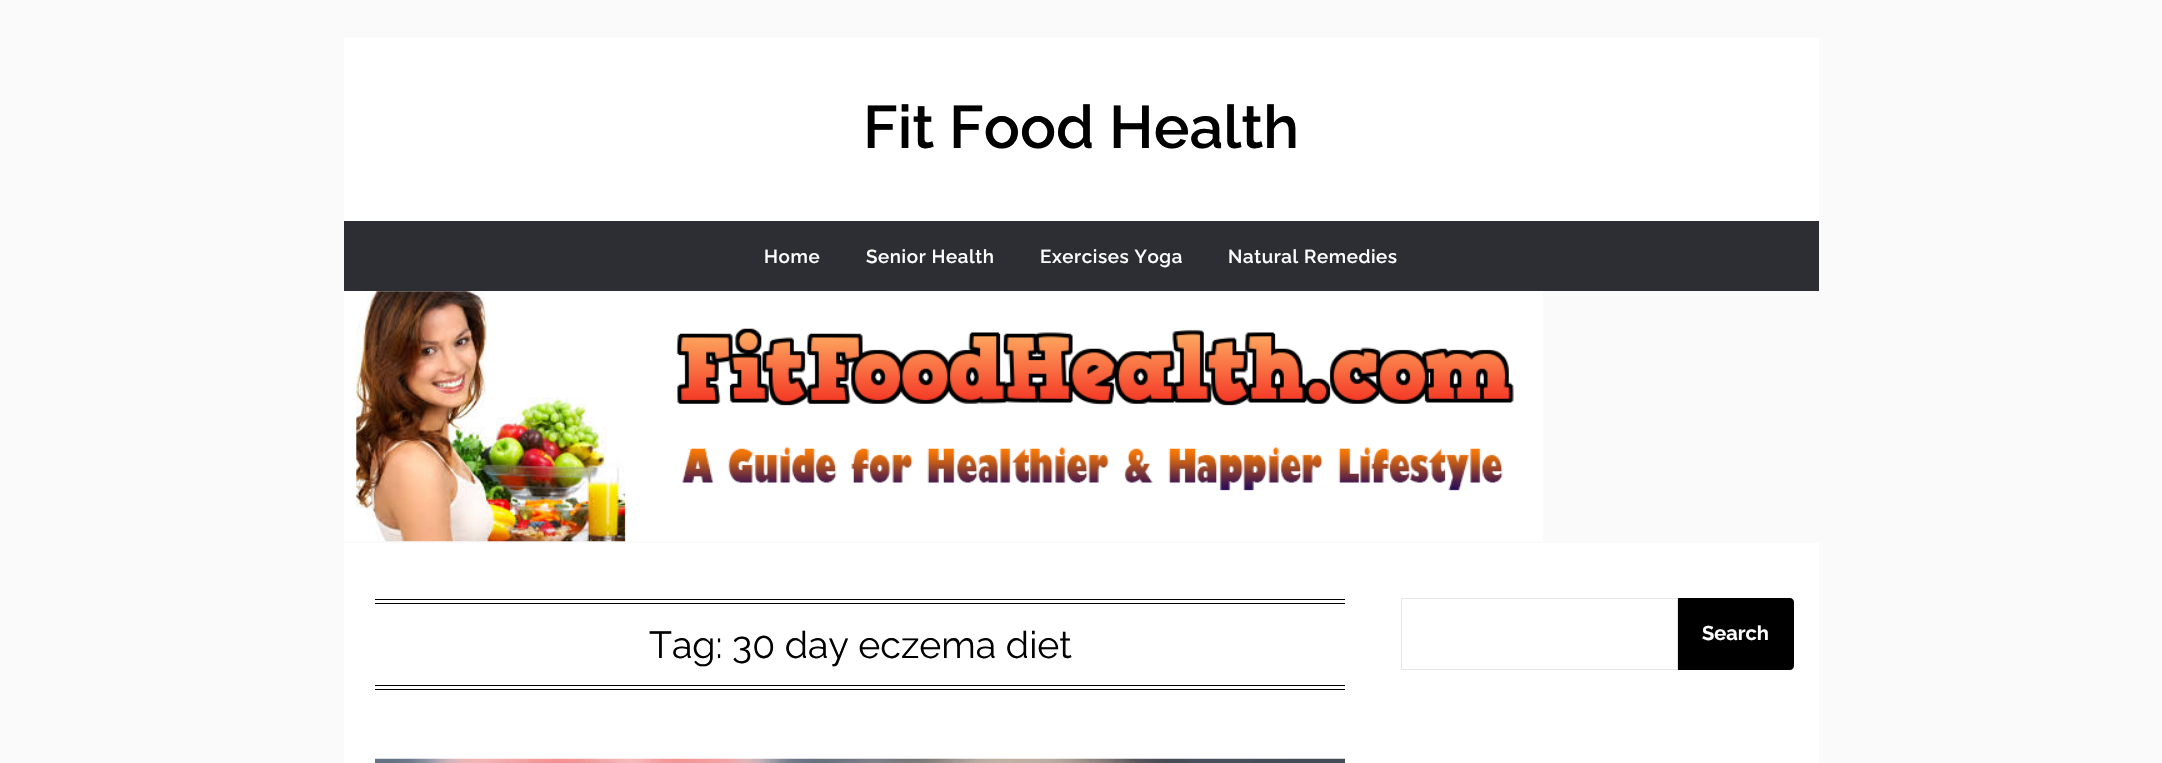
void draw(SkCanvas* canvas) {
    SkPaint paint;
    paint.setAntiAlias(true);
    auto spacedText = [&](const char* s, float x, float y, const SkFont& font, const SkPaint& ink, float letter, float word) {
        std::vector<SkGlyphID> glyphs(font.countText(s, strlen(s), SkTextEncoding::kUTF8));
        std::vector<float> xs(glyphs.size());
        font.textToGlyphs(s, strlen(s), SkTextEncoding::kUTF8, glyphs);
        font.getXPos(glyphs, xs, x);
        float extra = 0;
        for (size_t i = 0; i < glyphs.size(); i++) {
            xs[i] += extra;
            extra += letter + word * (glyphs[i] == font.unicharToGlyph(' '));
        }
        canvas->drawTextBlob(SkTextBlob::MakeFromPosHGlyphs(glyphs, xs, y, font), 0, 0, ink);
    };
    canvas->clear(0xFFFAFAFA);
    paint.setColor(0xFFFFFFFF);
    canvas->drawRect(SkRect::MakeXYWH(344, 38, 1475, 183), paint);
    SkFont font1(fontMgr->matchFamilyStyle("Raleway", SkFontStyle(600, SkFontStyle::kNormal_Width, SkFontStyle::kUpright_Slant)), 60);
    font1.setSubpixel(true);
    paint.setColor(0xFF000000);
    canvas->drawString("Fit Food Health", 863, 148, font1, paint);
    paint.setColor(0xFF2C2E33);
    canvas->drawRect(SkRect::MakeXYWH(344, 221, 1475, 70), paint);
    SkFont font2(fontMgr->matchFamilyStyle("Raleway", SkFontStyle(600, SkFontStyle::kNormal_Width, SkFontStyle::kUpright_Slant)), 18.75f);
    font2.setSubpixel(true);
    paint.setColor(0xFFFFFFFF);
    spacedText("Home", 764, 263, font2, paint, 0.6f, 0);
    spacedText("Senior Health", 866, 263, font2, paint, 0.6f, 0);
    spacedText("Exercises Yoga", 1040, 263, font2, paint, 0.6f, 0);
    spacedText("Natural Remedies", 1228, 263, font2, paint, 0.6f, 0);
    canvas->drawImageRect(SkImages::DeferredFromEncodedData(SkData::MakeFromFileName("img1.png")), SkRect::MakeXYWH(344, 291, 1199, 251), SkSamplingOptions());
    canvas->drawRect(SkRect::MakeXYWH(344, 543, 1475, 220), paint);
    paint.setColor(0xFF000000);
    canvas->drawRect(SkRect::MakeXYWH(375, 599, 970, 1), paint);
    canvas->drawRect(SkRect::MakeXYWH(375, 603, 970, 1), paint);
    canvas->drawRect(SkRect::MakeXYWH(375, 685, 970, 1), paint);
    canvas->drawRect(SkRect::MakeXYWH(375, 689, 970, 1), paint);
    SkFont font3(fontMgr->matchFamilyStyle("Raleway", SkFontStyle::Normal()), 37.5f);
    font3.setSubpixel(true);
    canvas->drawString("Tag: 30 day eczema diet", 649, 658, font3, paint);
    canvas->drawImageRect(SkImages::DeferredFromEncodedData(SkData::MakeFromFileName("img2.png")), SkRect::MakeXYWH(375, 758, 970, 5), SkSamplingOptions());
    paint.setStyle(SkPaint::kStroke_Style);
    paint.setStrokeWidth(1);
    paint.setColor(0xFFE5E6E9);
    canvas->drawRect(SkRect::MakeXYWH(1401.5f, 598.5f, 276, 71), paint);
    paint.setStyle(SkPaint::kFill_Style);
    paint.setColor(0xFF000000);
    canvas->drawPath(SkPathBuilder().moveTo(1678, 598).lineTo(1790, 598).cubicTo(1792, 598, 1794, 600, 1794, 602).lineTo(1794, 666).cubicTo(1794, 668, 1792, 670, 1790, 670).lineTo(1678, 670).close().detach(), paint);
    SkFont font4(fontMgr->matchFamilyStyle("Raleway", SkFontStyle::Bold()), 20);
    font4.setSubpixel(true);
    paint.setColor(0xFFFFFFFF);
    canvas->drawString("Search", 1702, 640, font4, paint);
}
